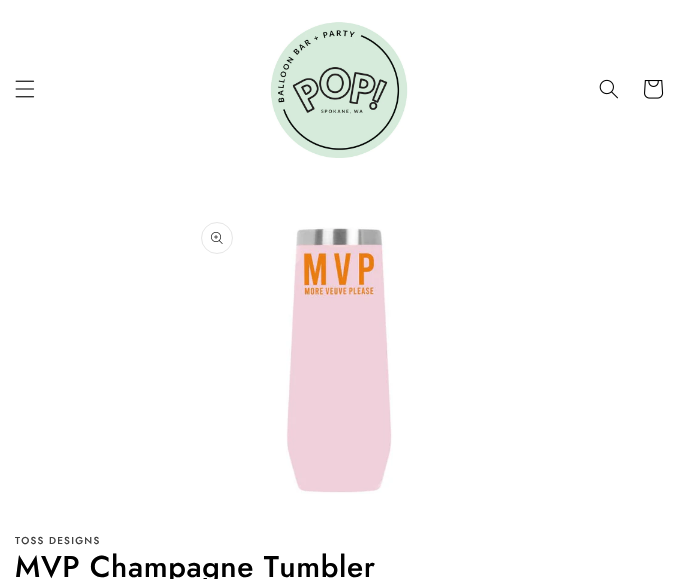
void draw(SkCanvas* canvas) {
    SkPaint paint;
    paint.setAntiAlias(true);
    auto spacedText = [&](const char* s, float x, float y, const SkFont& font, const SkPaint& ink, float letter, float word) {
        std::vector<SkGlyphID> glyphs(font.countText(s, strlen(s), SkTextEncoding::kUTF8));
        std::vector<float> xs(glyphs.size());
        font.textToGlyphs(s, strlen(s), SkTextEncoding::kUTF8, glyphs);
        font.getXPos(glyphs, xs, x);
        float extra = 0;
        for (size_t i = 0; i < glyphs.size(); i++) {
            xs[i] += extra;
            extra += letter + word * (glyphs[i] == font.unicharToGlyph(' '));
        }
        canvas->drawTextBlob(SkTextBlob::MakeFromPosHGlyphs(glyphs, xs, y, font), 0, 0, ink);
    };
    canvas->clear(0xFFFFFFFF);
    canvas->drawImageRect(SkImages::DeferredFromEncodedData(SkData::MakeFromFileName("img1.png")), SkRect::MakeXYWH(15, 80, 20, 18), SkSamplingOptions());
    canvas->drawImageRect(SkImages::DeferredFromEncodedData(SkData::MakeFromFileName("img2.png")), SkRect::MakeXYWH(270, 22, 138, 136), SkSamplingOptions());
    canvas->drawImageRect(SkImages::DeferredFromEncodedData(SkData::MakeFromFileName("img3.png")), SkRect::MakeXYWH(599, 79, 19, 20), SkSamplingOptions());
    canvas->drawImageRect(SkImages::DeferredFromEncodedData(SkData::MakeFromFileName("img4.png")), SkRect::MakeXYWH(644, 80, 20, 19), SkSamplingOptions());
    paint.setStyle(SkPaint::kStroke_Style);
    paint.setStrokeWidth(1);
    paint.setColor(0xFFE6E6E6);
    canvas->drawCircle(217, 238, 15.5f, paint);
    canvas->drawImageRect(SkImages::DeferredFromEncodedData(SkData::MakeFromFileName("img5.png")), SkRect::MakeXYWH(211, 232, 12, 12), SkSamplingOptions());
    canvas->drawImageRect(SkImages::DeferredFromEncodedData(SkData::MakeFromFileName("img6.png")), SkRect::MakeXYWH(286, 227, 107, 267), SkSamplingOptions());
    SkFont font1(fontMgr->matchFamilyStyle("Jost", SkFontStyle(500, SkFontStyle::kNormal_Width, SkFontStyle::kUpright_Slant)), 10);
    font1.setSubpixel(true);
    paint.setStyle(SkPaint::kFill_Style);
    paint.setColor(0xFF404040);
    spacedText("TOSS DESIGNS", 15, 544, font1, paint, 1.25f, 0);
    SkFont font2(fontMgr->matchFamilyStyle("Jost", SkFontStyle(500, SkFontStyle::kNormal_Width, SkFontStyle::kUpright_Slant)), 30);
    font2.setSubpixel(true);
    paint.setColor(0xFF000000);
    spacedText("MVP Champagne Tumbler", 15, 577, font2, paint, 0.6f, 0);
}
